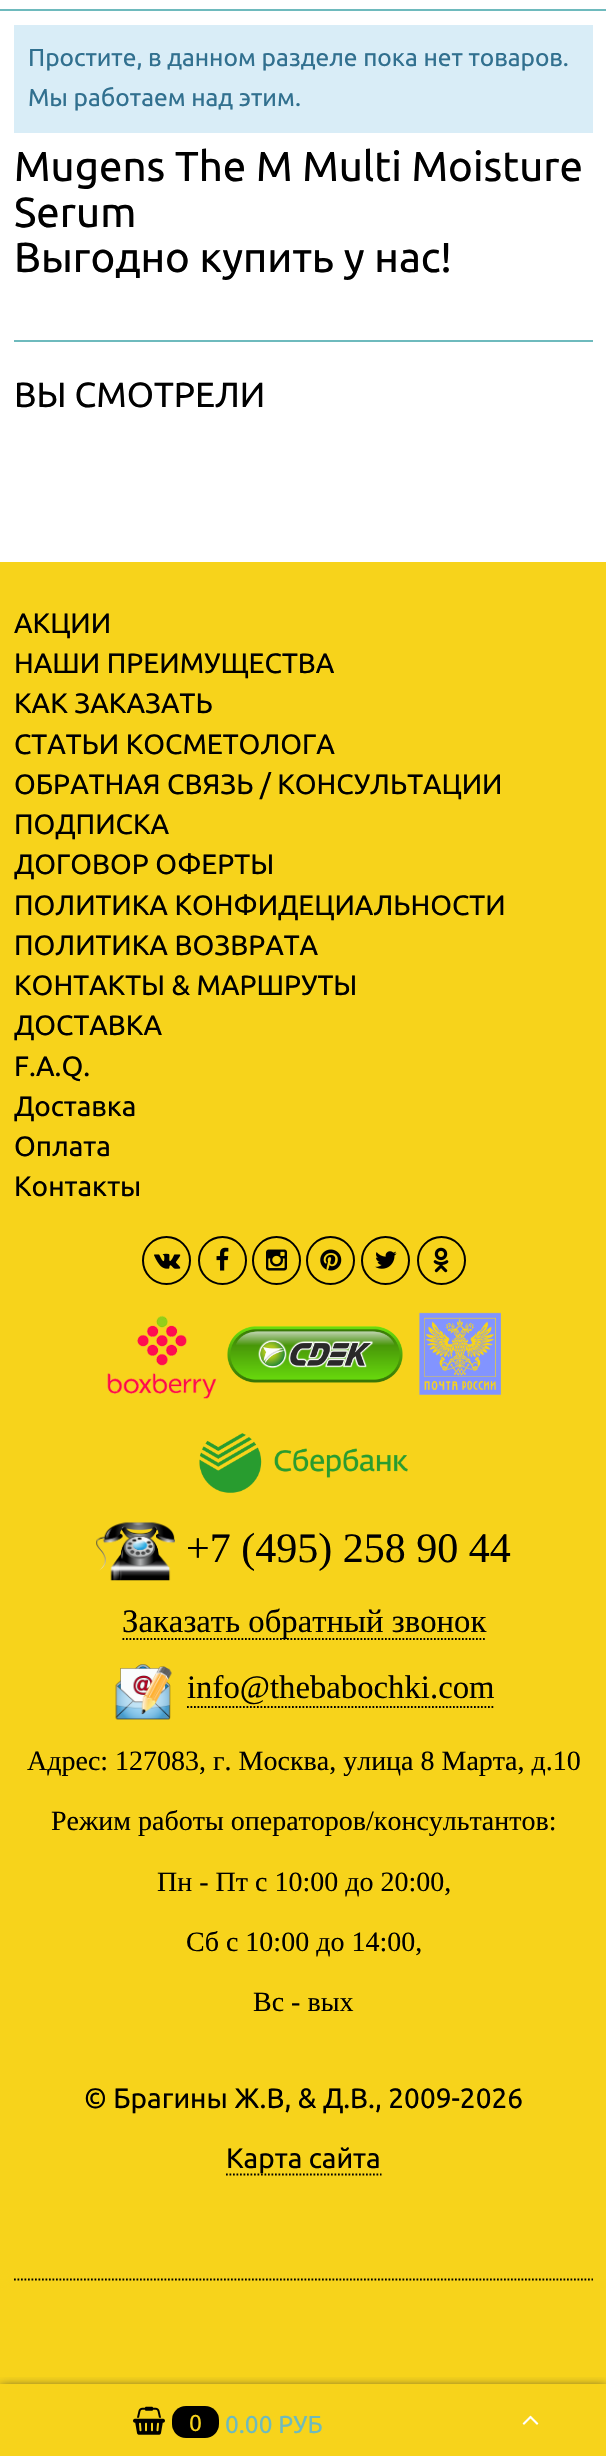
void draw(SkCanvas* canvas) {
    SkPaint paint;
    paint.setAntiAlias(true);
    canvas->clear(0xFFF7D31B);
    paint.setColor(0xFFFFFFFF);
    canvas->drawRect(SkRect::MakeXYWH(0, 0, 606, 562), paint);
    paint.setColor(0xFF6EBABD);
    canvas->drawRect(SkRect::MakeXYWH(0, 9, 606, 2), paint);
    paint.setColor(0xFFD9EDF7);
    canvas->drawRect(SkRect::MakeXYWH(14, 25, 579, 108), paint);
    SkFont font1(fontMgr->matchFamilyStyle("Ubuntu", SkFontStyle::Normal()), 24.5f);
    font1.setSubpixel(true);
    paint.setColor(0xFF31708F);
    canvas->drawString("Простите, в данном разделе пока нет товаров.", 28, 66, font1, paint);
    canvas->drawString("Мы работаем над этим.", 28, 106, font1, paint);
    SkFont font2(fontMgr->matchFamilyStyle("Ubuntu", SkFontStyle::Normal()), 42);
    font2.setSubpixel(true);
    paint.setColor(0xFF000000);
    canvas->drawString("Mugens The M Multi Moisture", 14, 181, font2, paint);
    canvas->drawString("Serum", 14, 227, font2, paint);
    canvas->drawString("Выгодно купить у нас!", 14, 272, font2, paint);
    paint.setColor(0xFF6EBABD);
    canvas->drawRect(SkRect::MakeXYWH(14, 340, 579, 2), paint);
    SkFont font3(fontMgr->matchFamilyStyle("Ubuntu", SkFontStyle::Normal()), 35);
    font3.setSubpixel(true);
    paint.setColor(0xFF000000);
    canvas->drawString("ВЫ СМОТРЕЛИ", 14, 407, font3, paint);
    SkFont font4(fontMgr->matchFamilyStyle("Ubuntu", SkFontStyle::Normal()), 28);
    font4.setSubpixel(true);
    canvas->drawString("АКЦИИ", 14, 633, font4, paint);
    canvas->drawString("НАШИ ПРЕИМУЩЕСТВА", 14, 673, font4, paint);
    canvas->drawString("КАК ЗАКАЗАТЬ", 14, 713, font4, paint);
    canvas->drawString("СТАТЬИ КОСМЕТОЛОГА", 14, 754, font4, paint);
    canvas->drawString("ОБРАТНАЯ СВЯЗЬ / КОНСУЛЬТАЦИИ", 14, 794, font4, paint);
    canvas->drawString("ПОДПИСКА", 14, 834, font4, paint);
    canvas->drawString("ДОГОВОР ОФЕРТЫ", 14, 874, font4, paint);
    canvas->drawString("ПОЛИТИКА КОНФИДЕЦИАЛЬНОСТИ", 14, 915, font4, paint);
    canvas->drawString("ПОЛИТИКА ВОЗВРАТА", 14, 955, font4, paint);
    canvas->drawString("КОНТАКТЫ & МАРШРУТЫ", 14, 995, font4, paint);
    canvas->drawString("ДОСТАВКА", 14, 1035, font4, paint);
    canvas->drawString("F.A.Q.", 14, 1076, font4, paint);
    canvas->drawString("Доставка", 14, 1116, font4, paint);
    canvas->drawString("Оплата", 14, 1156, font4, paint);
    canvas->drawString("Контакты", 14, 1196, font4, paint);
    paint.setStyle(SkPaint::kStroke_Style);
    paint.setStrokeWidth(2);
    canvas->drawCircle(166.5f, 1260.5f, 23.5f, paint);
    canvas->drawImageRect(SkImages::DeferredFromEncodedData(SkData::MakeFromFileName("img1.png")), SkRect::MakeXYWH(154, 1253, 27, 16), SkSamplingOptions());
    canvas->drawCircle(222.5f, 1260.5f, 23.5f, paint);
    canvas->drawImageRect(SkImages::DeferredFromEncodedData(SkData::MakeFromFileName("img2.png")), SkRect::MakeXYWH(216, 1247, 13, 24), SkSamplingOptions());
    canvas->drawCircle(276.5f, 1260.5f, 23.5f, paint);
    canvas->drawImageRect(SkImages::DeferredFromEncodedData(SkData::MakeFromFileName("img3.png")), SkRect::MakeXYWH(266, 1249, 21, 22), SkSamplingOptions());
    canvas->drawCircle(330.5f, 1260.5f, 23.5f, paint);
    canvas->drawImageRect(SkImages::DeferredFromEncodedData(SkData::MakeFromFileName("img4.png")), SkRect::MakeXYWH(320, 1249, 22, 22), SkSamplingOptions());
    canvas->drawCircle(385.5f, 1260.5f, 23.5f, paint);
    canvas->drawImageRect(SkImages::DeferredFromEncodedData(SkData::MakeFromFileName("img5.png")), SkRect::MakeXYWH(375, 1251, 22, 18), SkSamplingOptions());
    canvas->drawCircle(441.5f, 1260.5f, 23.5f, paint);
    canvas->drawImageRect(SkImages::DeferredFromEncodedData(SkData::MakeFromFileName("img6.png")), SkRect::MakeXYWH(433, 1247, 16, 26), SkSamplingOptions());
    canvas->drawImageRect(SkImages::DeferredFromEncodedData(SkData::MakeFromFileName("img7.png")), SkRect::MakeXYWH(107, 1315, 110, 84), SkSamplingOptions());
    canvas->drawImageRect(SkImages::DeferredFromEncodedData(SkData::MakeFromFileName("img8.png")), SkRect::MakeXYWH(227, 1326, 176, 57), SkSamplingOptions());
    canvas->drawImageRect(SkImages::DeferredFromEncodedData(SkData::MakeFromFileName("img9.png")), SkRect::MakeXYWH(419, 1312, 82, 83), SkSamplingOptions());
    canvas->drawImageRect(SkImages::DeferredFromEncodedData(SkData::MakeFromFileName("img10.png")), SkRect::MakeXYWH(199, 1433, 209, 60), SkSamplingOptions());
    canvas->drawImageRect(SkImages::DeferredFromEncodedData(SkData::MakeFromFileName("img11.png")), SkRect::MakeXYWH(96, 1522, 79, 59), SkSamplingOptions());
    SkFont font5(fontMgr->matchFamilyStyle("Liberation Serif", SkFontStyle::Normal()), 42);
    font5.setSubpixel(true);
    paint.setStyle(SkPaint::kFill_Style);
    canvas->drawString("+7 (495) 258 90 44", 186, 1562, font5, paint);
    paint.setStyle(SkPaint::kStroke_Style);
    paint.setStrokeWidth(1.8f);
    paint.setPathEffect(SkDashPathEffect::Make({{1.75f, 1.75f}}, 0));
    canvas->drawPath(SkPathBuilder().moveTo(122.5f, 1639).lineTo(485, 1639).detach(), paint);
    paint.setPathEffect(nullptr);
    SkFont font6(fontMgr->matchFamilyStyle("Liberation Serif", SkFontStyle::Normal()), 32.75f);
    font6.setSubpixel(true);
    paint.setStyle(SkPaint::kFill_Style);
    canvas->drawString("Заказать обратный звонок", 122, 1632, font6, paint);
    canvas->drawImageRect(SkImages::DeferredFromEncodedData(SkData::MakeFromFileName("img12.png")), SkRect::MakeXYWH(115, 1664, 57, 56), SkSamplingOptions());
    canvas->drawString("info@thebabochki.com", 187, 1698, font6, paint);
    paint.setStyle(SkPaint::kStroke_Style);
    paint.setPathEffect(SkDashPathEffect::Make({{1.75f, 1.75f}}, 0));
    canvas->drawPath(SkPathBuilder().moveTo(187, 1707).lineTo(493.5f, 1707).detach(), paint);
    paint.setPathEffect(nullptr);
    SkFont font7(fontMgr->matchFamilyStyle("Liberation Serif", SkFontStyle::Normal()), 28);
    font7.setSubpixel(true);
    paint.setStyle(SkPaint::kFill_Style);
    canvas->drawString("Адрес: 127083, г. Москва, улица 8 Марта, д.10", 27, 1770, font7, paint);
    canvas->drawString("Режим работы операторов/консультантов:", 51, 1830, font7, paint);
    canvas->drawString("Пн - Пт с 10:00 до 20:00,", 157, 1891, font7, paint);
    canvas->drawString("Сб с 10:00 до 14:00,", 186, 1951, font7, paint);
    canvas->drawString("Вс - вых", 253, 2011, font7, paint);
    canvas->drawString("© Брагины Ж.В, & Д.В., 2009-2026", 84, 2108, font4, paint);
    paint.setStyle(SkPaint::kStroke_Style);
    paint.setPathEffect(SkDashPathEffect::Make({{1.75f, 1.75f}}, 0));
    canvas->drawPath(SkPathBuilder().moveTo(226, 2174.5f).lineTo(381.5f, 2174.5f).detach(), paint);
    paint.setPathEffect(nullptr);
    paint.setStyle(SkPaint::kFill_Style);
    canvas->drawString("Карта сайта", 226, 2168, font4, paint);
    paint.setStyle(SkPaint::kStroke_Style);
    paint.setPathEffect(SkDashPathEffect::Make({{1.75f, 1.75f}}, 0));
    canvas->drawPath(SkPathBuilder().moveTo(14, 2279.5f).lineTo(593, 2279.5f).detach(), paint);
    paint.setPathEffect(nullptr);
    canvas->save();
    canvas->clipRect(SkRect::MakeXYWH(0, 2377, 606, 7));
    paint.setStyle(SkPaint::kFill_Style);
    paint.setColor(0xFF333333);
    paint.setMaskFilter(SkMaskFilter::MakeBlur(kNormal_SkBlurStyle, 5));
    canvas->drawRect(SkRect::MakeXYWH(0, 2387, 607, 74), paint);
    paint.setMaskFilter(nullptr);
    canvas->restore();
    canvas->drawImageRect(SkImages::DeferredFromEncodedData(SkData::MakeFromFileName("img13.png")), SkRect::MakeXYWH(133, 2406, 32, 29), SkSamplingOptions());
    paint.setColor(0xFF000000);
    canvas->drawRoundRect(SkRect::MakeXYWH(172, 2406, 47, 32), 14, 14, paint);
    SkFont font8(fontMgr->matchFamilyStyle("Ubuntu", SkFontStyle::Normal()), 23);
    font8.setSubpixel(true);
    paint.setColor(0xFFF7D31B);
    canvas->drawString("0", 189, 2431, font8, paint);
    paint.setColor(0xFF6EBABD);
    canvas->drawString("0.00 РУБ", 225, 2433, font1, paint);
    canvas->drawImageRect(SkImages::DeferredFromEncodedData(SkData::MakeFromFileName("img14.png")), SkRect::MakeXYWH(522, 2415, 17, 10), SkSamplingOptions());
}
